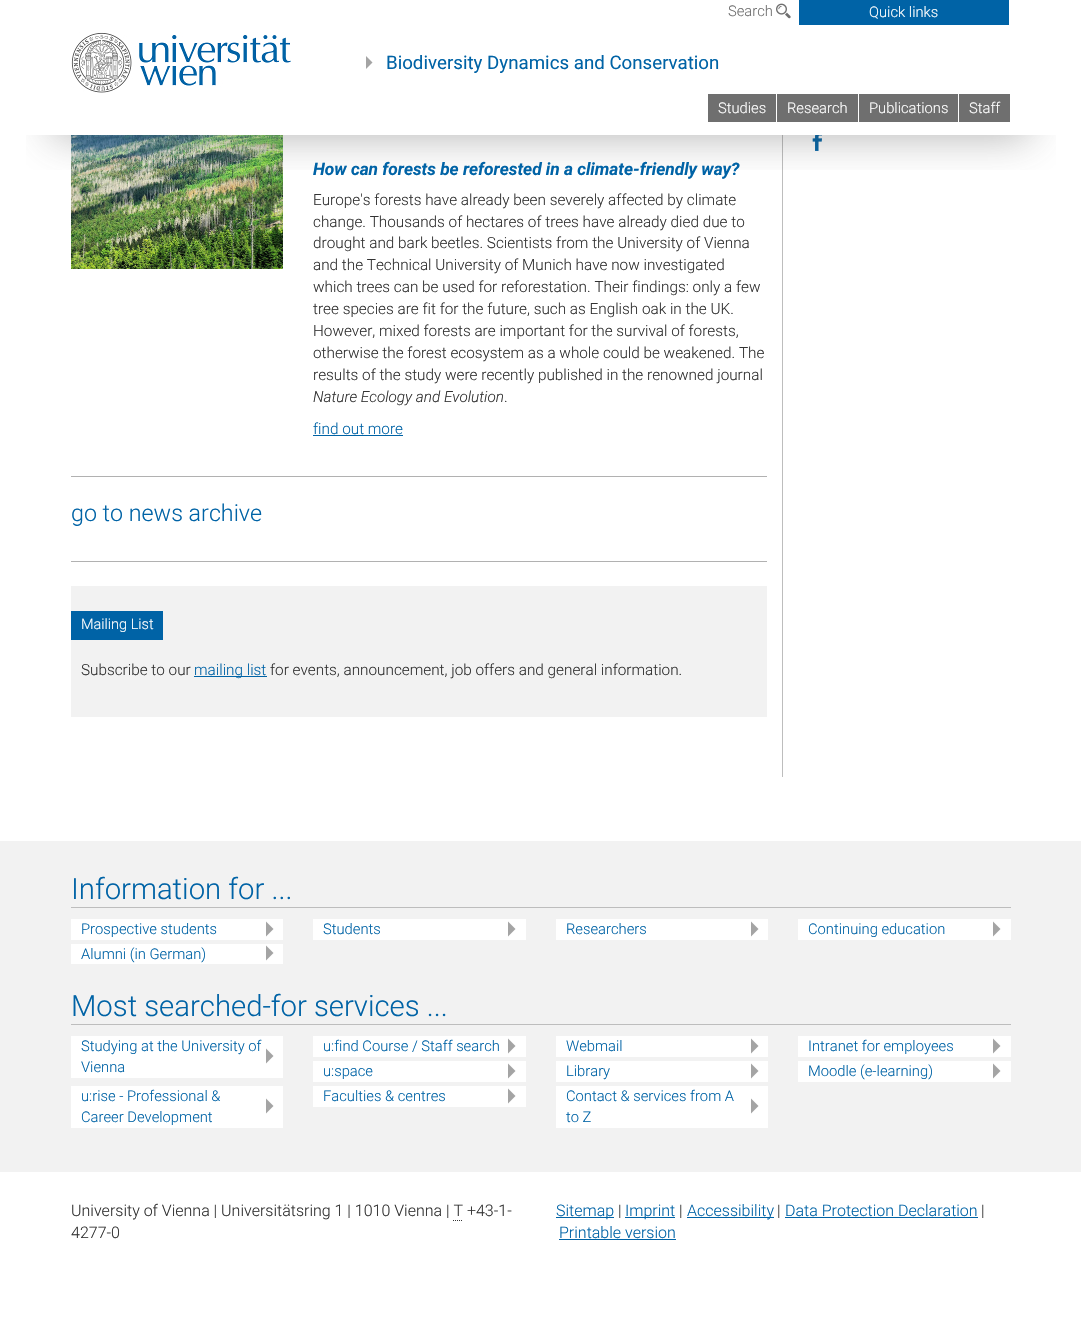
void draw(SkCanvas* canvas) {
    SkPaint paint;
    paint.setAntiAlias(true);
    canvas->clear(0xFFFFFFFF);
    canvas->drawImageRect(SkImages::DeferredFromEncodedData(SkData::MakeFromFileName("img3.png")), SkRect::MakeXYWH(812, 135, 10, 16), SkSamplingOptions());
    paint.setColor(0xFFBDBDBD);
    canvas->drawRect(SkRect::MakeXYWH(782, 135, 1, 642), paint);
    canvas->drawImageRect(SkImages::DeferredFromEncodedData(SkData::MakeFromFileName("img4.png")), SkRect::MakeXYWH(71, 135, 212, 134), SkSamplingOptions());
    canvas->save();
    canvas->clipRect(SkRect::MakeXYWH(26, 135, 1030, 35));
    paint.setColor(0x66464646);
    paint.setMaskFilter(SkMaskFilter::MakeBlur(kNormal_SkBlurStyle, 20));
    canvas->drawRect(SkRect::MakeXYWH(52, 14, 978, 123), paint);
    paint.setMaskFilter(nullptr);
    canvas->restore();
    paint.setColor(0xFFFFFFFF);
    canvas->drawRect(SkRect::MakeXYWH(16, 0, 30, 135), paint);
    canvas->drawRect(SkRect::MakeXYWH(1036, 0, 30, 135), paint);
    SkFont font1(fontMgr->matchFamilyStyle("Roboto", SkFontStyle(300, SkFontStyle::kNormal_Width, SkFontStyle::kUpright_Slant)), 14.75f);
    font1.setSubpixel(true);
    paint.setColor(0xFF6F6F6F);
    canvas->drawString("Search", 728, 16, font1, paint);
    canvas->drawImageRect(SkImages::DeferredFromEncodedData(SkData::MakeFromFileName("img1.png")), SkRect::MakeXYWH(776, 3, 15, 16), SkSamplingOptions());
    paint.setColor(0xFF0063A6);
    canvas->drawRect(SkRect::MakeXYWH(799, 0, 210, 25), paint);
    paint.setColor(0xFFFFFFFF);
    canvas->drawString("Quick links", 869, 17, font1, paint);
    canvas->drawImageRect(SkImages::DeferredFromEncodedData(SkData::MakeFromFileName("img2.png")), SkRect::MakeXYWH(71, 32, 220, 61), SkSamplingOptions());
    paint.setColor(0xFFA4A4A4);
    canvas->drawPath(SkPathBuilder().moveTo(366, 56).lineTo(366, 69).lineTo(372.5f, 62.5f).close().detach(), paint);
    SkFont font2(fontMgr->matchFamilyStyle("Roboto", SkFontStyle::Normal()), 18.7f);
    font2.setSubpixel(true);
    paint.setColor(0xFF0063A6);
    canvas->drawString("Biodiversity Dynamics and Conservation", 386, 69, font2, paint);
    paint.setColor(0xFF6F6F6F);
    canvas->drawRect(SkRect::MakeXYWH(708, 94, 68, 28), paint);
    paint.setColor(0xFFFFFFFF);
    canvas->drawString("Studies", 718, 113, font1, paint);
    paint.setColor(0xFF6F6F6F);
    canvas->drawRect(SkRect::MakeXYWH(777, 94, 81, 28), paint);
    paint.setColor(0xFFFFFFFF);
    canvas->drawString("Research", 787, 113, font1, paint);
    paint.setColor(0xFF6F6F6F);
    canvas->drawRect(SkRect::MakeXYWH(859, 94, 99, 28), paint);
    paint.setColor(0xFFFFFFFF);
    canvas->drawString("Publications", 869, 113, font1, paint);
    paint.setColor(0xFF6F6F6F);
    canvas->drawRect(SkRect::MakeXYWH(959, 94, 51, 28), paint);
    paint.setColor(0xFFFFFFFF);
    canvas->drawString("Staff", 969, 113, font1, paint);
    SkFont font3(fontMgr->matchFamilyStyle("Roboto", SkFontStyle::BoldItalic()), 17.3f);
    font3.setSubpixel(true);
    paint.setColor(0xFF0063A6);
    canvas->drawString("How can forests be reforested in a climate-friendly way?", 313, 175, font3, paint);
    SkFont font4(fontMgr->matchFamilyStyle("Roboto", SkFontStyle(300, SkFontStyle::kNormal_Width, SkFontStyle::kUpright_Slant)), 15.3f);
    font4.setSubpixel(true);
    paint.setColor(0xFF333333);
    canvas->drawString("Europe's forests have already been severely affected by climate", 313, 205, font4, paint);
    canvas->drawString("change. Thousands of hectares of trees have already died due to", 313, 227, font4, paint);
    canvas->drawString("drought and bark beetles. Scientists from the University of Vienna", 313, 248, font4, paint);
    canvas->drawString("and the Technical University of Munich have now investigated", 313, 270, font4, paint);
    canvas->drawString("which trees can be used for reforestation. Their findings: only a few", 313, 292, font4, paint);
    canvas->drawString("tree species are fit for the future, such as English oak in the UK.", 313, 314, font4, paint);
    canvas->drawString("However, mixed forests are important for the survival of forests,", 313, 336, font4, paint);
    canvas->drawString("otherwise the forest ecosystem as a whole could be weakened. The", 313, 358, font4, paint);
    canvas->drawString("results of the study were recently published in the renowned journal", 313, 380, font4, paint);
    SkFont font5(fontMgr->matchFamilyStyle("Roboto", SkFontStyle(300, SkFontStyle::kNormal_Width, SkFontStyle::kItalic_Slant)), 15.3f);
    font5.setSubpixel(true);
    canvas->drawString("Nature Ecology and Evolution", 313, 402, font5, paint);
    canvas->drawString(".", 504, 402, font4, paint);
    paint.setColor(0xFF0063A6);
    canvas->drawString("find out more", 313, 434, font4, paint);
    canvas->drawRect(SkRect::MakeXYWH(313, 435, 90, 1), paint);
    paint.setColor(0xFFB1B1B1);
    canvas->drawRect(SkRect::MakeXYWH(71, 476, 696, 1), paint);
    SkFont font6(fontMgr->matchFamilyStyle("Roboto", SkFontStyle(300, SkFontStyle::kNormal_Width, SkFontStyle::kUpright_Slant)), 23.25f);
    font6.setSubpixel(true);
    paint.setColor(0xFF0063A6);
    canvas->drawString("go to news archive", 71, 521, font6, paint);
    paint.setColor(0xFFB1B1B1);
    canvas->drawRect(SkRect::MakeXYWH(71, 561, 696, 1), paint);
    paint.setColor(0xFFF2F2F2);
    canvas->drawRect(SkRect::MakeXYWH(71, 586, 696, 131), paint);
    paint.setColor(0xFF0063A6);
    canvas->drawRect(SkRect::MakeXYWH(71, 611, 92, 29), paint);
    SkFont font7(fontMgr->matchFamilyStyle("Roboto", SkFontStyle(300, SkFontStyle::kNormal_Width, SkFontStyle::kUpright_Slant)), 14.5f);
    font7.setSubpixel(true);
    paint.setColor(0xFFFFFFFF);
    canvas->drawString("Mailing List", 81, 629, font7, paint);
    paint.setColor(0xFF333333);
    canvas->drawString("Subscribe to our", 81, 675, font4, paint);
    paint.setColor(0xFF0063A6);
    canvas->drawRect(SkRect::MakeXYWH(194, 676, 73, 1), paint);
    canvas->drawString("mailing list", 194, 675, font4, paint);
    paint.setColor(0xFF333333);
    canvas->drawString("for events, announcement, job offers and general information.", 270, 675, font4, paint);
    paint.setColor(0xFFF2F2F2);
    canvas->drawRect(SkRect::MakeXYWH(0, 841, 1081, 331), paint);
    paint.setColor(0xFFBDBDBD);
    canvas->drawRect(SkRect::MakeXYWH(71, 907, 940, 1), paint);
    SkFont font8(fontMgr->matchFamilyStyle("Roboto", SkFontStyle(300, SkFontStyle::kNormal_Width, SkFontStyle::kUpright_Slant)), 29.3f);
    font8.setSubpixel(true);
    paint.setColor(0xFF0063A6);
    canvas->drawString("Information for ...", 71, 899, font8, paint);
    paint.setColor(0xFFFFFFFF);
    canvas->drawRect(SkRect::MakeXYWH(71, 919, 212, 21), paint);
    paint.setColor(0xFF0063A6);
    canvas->drawString("Prospective students", 81, 934, font1, paint);
    paint.setColor(0xFFA4A4A4);
    canvas->drawPath(SkPathBuilder().moveTo(266, 921.5f).lineTo(266, 936.5f).lineTo(273.5f, 929).close().detach(), paint);
    paint.setColor(0xFFFFFFFF);
    canvas->drawRect(SkRect::MakeXYWH(313, 919, 213, 21), paint);
    paint.setColor(0xFF0063A6);
    canvas->drawString("Students", 323, 934, font1, paint);
    paint.setColor(0xFFA4A4A4);
    canvas->drawPath(SkPathBuilder().moveTo(508, 921.5f).lineTo(508, 936.5f).lineTo(515.5f, 929).close().detach(), paint);
    paint.setColor(0xFFFFFFFF);
    canvas->drawRect(SkRect::MakeXYWH(556, 919, 212, 21), paint);
    paint.setColor(0xFF0063A6);
    canvas->drawString("Researchers", 566, 934, font1, paint);
    paint.setColor(0xFFA4A4A4);
    canvas->drawPath(SkPathBuilder().moveTo(751, 921.5f).lineTo(751, 936.5f).lineTo(758.5f, 929).close().detach(), paint);
    paint.setColor(0xFFFFFFFF);
    canvas->drawRect(SkRect::MakeXYWH(798, 919, 213, 21), paint);
    paint.setColor(0xFF0063A6);
    canvas->drawString("Continuing education", 808, 934, font1, paint);
    paint.setColor(0xFFA4A4A4);
    canvas->drawPath(SkPathBuilder().moveTo(993, 921.5f).lineTo(993, 936.5f).lineTo(1000.5f, 929).close().detach(), paint);
    paint.setColor(0xFFFFFFFF);
    canvas->drawRect(SkRect::MakeXYWH(71, 944, 212, 20), paint);
    paint.setColor(0xFF0063A6);
    canvas->drawString("Alumni (in German)", 81, 959, font1, paint);
    paint.setColor(0xFFA4A4A4);
    canvas->drawPath(SkPathBuilder().moveTo(266, 945.5f).lineTo(266, 960.5f).lineTo(273.5f, 953).close().detach(), paint);
    paint.setColor(0xFFBDBDBD);
    canvas->drawRect(SkRect::MakeXYWH(71, 1024, 940, 1), paint);
    paint.setColor(0xFF0063A6);
    canvas->drawString("Most searched-for services ...", 71, 1016, font8, paint);
    paint.setColor(0xFFFFFFFF);
    canvas->drawRect(SkRect::MakeXYWH(71, 1036, 212, 42), paint);
    paint.setColor(0xFF0063A6);
    canvas->drawString("Studying at the University of", 81, 1051, font1, paint);
    paint.setColor(0xFFA4A4A4);
    canvas->drawPath(SkPathBuilder().moveTo(266, 1048.5f).lineTo(266, 1063.5f).lineTo(273.5f, 1056).close().detach(), paint);
    paint.setColor(0xFF0063A6);
    canvas->drawString("Vienna", 81, 1072, font1, paint);
    paint.setColor(0xFFFFFFFF);
    canvas->drawRect(SkRect::MakeXYWH(313, 1036, 213, 21), paint);
    paint.setColor(0xFF0063A6);
    canvas->drawString("u:find Course / Staff search", 323, 1051, font1, paint);
    paint.setColor(0xFFA4A4A4);
    canvas->drawPath(SkPathBuilder().moveTo(508, 1038.5f).lineTo(508, 1053.5f).lineTo(515.5f, 1046).close().detach(), paint);
    paint.setColor(0xFFFFFFFF);
    canvas->drawRect(SkRect::MakeXYWH(556, 1036, 212, 21), paint);
    paint.setColor(0xFF0063A6);
    canvas->drawString("Webmail", 566, 1051, font1, paint);
    paint.setColor(0xFFA4A4A4);
    canvas->drawPath(SkPathBuilder().moveTo(751, 1038.5f).lineTo(751, 1053.5f).lineTo(758.5f, 1046).close().detach(), paint);
    paint.setColor(0xFFFFFFFF);
    canvas->drawRect(SkRect::MakeXYWH(798, 1036, 213, 21), paint);
    paint.setColor(0xFF0063A6);
    canvas->drawString("Intranet for employees", 808, 1051, font1, paint);
    paint.setColor(0xFFA4A4A4);
    canvas->drawPath(SkPathBuilder().moveTo(993, 1038.5f).lineTo(993, 1053.5f).lineTo(1000.5f, 1046).close().detach(), paint);
    paint.setColor(0xFFFFFFFF);
    canvas->drawRect(SkRect::MakeXYWH(313, 1061, 213, 21), paint);
    paint.setColor(0xFF0063A6);
    canvas->drawString("u:space", 323, 1076, font1, paint);
    paint.setColor(0xFFA4A4A4);
    canvas->drawPath(SkPathBuilder().moveTo(508, 1063.5f).lineTo(508, 1078.5f).lineTo(515.5f, 1071).close().detach(), paint);
    paint.setColor(0xFFFFFFFF);
    canvas->drawRect(SkRect::MakeXYWH(556, 1061, 212, 21), paint);
    paint.setColor(0xFF0063A6);
    canvas->drawString("Library", 566, 1076, font1, paint);
    paint.setColor(0xFFA4A4A4);
    canvas->drawPath(SkPathBuilder().moveTo(751, 1063.5f).lineTo(751, 1078.5f).lineTo(758.5f, 1071).close().detach(), paint);
    paint.setColor(0xFFFFFFFF);
    canvas->drawRect(SkRect::MakeXYWH(798, 1061, 213, 21), paint);
    paint.setColor(0xFF0063A6);
    canvas->drawString("Moodle (e-learning)", 808, 1076, font1, paint);
    paint.setColor(0xFFA4A4A4);
    canvas->drawPath(SkPathBuilder().moveTo(993, 1063.5f).lineTo(993, 1078.5f).lineTo(1000.5f, 1071).close().detach(), paint);
    paint.setColor(0xFFFFFFFF);
    canvas->drawRect(SkRect::MakeXYWH(71, 1086, 212, 42), paint);
    paint.setColor(0xFF0063A6);
    canvas->drawString("u:rise - Professional &", 81, 1101, font1, paint);
    paint.setColor(0xFFA4A4A4);
    canvas->drawPath(SkPathBuilder().moveTo(266, 1098.5f).lineTo(266, 1113.5f).lineTo(273.5f, 1106).close().detach(), paint);
    paint.setColor(0xFF0063A6);
    canvas->drawString("Career Development", 81, 1122, font1, paint);
    paint.setColor(0xFFFFFFFF);
    canvas->drawRect(SkRect::MakeXYWH(313, 1086, 213, 21), paint);
    paint.setColor(0xFF0063A6);
    canvas->drawString("Faculties & centres", 323, 1101, font1, paint);
    paint.setColor(0xFFA4A4A4);
    canvas->drawPath(SkPathBuilder().moveTo(508, 1088.5f).lineTo(508, 1103.5f).lineTo(515.5f, 1096).close().detach(), paint);
    paint.setColor(0xFFFFFFFF);
    canvas->drawRect(SkRect::MakeXYWH(556, 1086, 212, 42), paint);
    paint.setColor(0xFF0063A6);
    canvas->drawString("Contact & services from A", 566, 1101, font1, paint);
    paint.setColor(0xFFA4A4A4);
    canvas->drawPath(SkPathBuilder().moveTo(751, 1098.5f).lineTo(751, 1113.5f).lineTo(758.5f, 1106).close().detach(), paint);
    paint.setColor(0xFF0063A6);
    canvas->drawString("to Z", 566, 1122, font1, paint);
    SkFont font9(fontMgr->matchFamilyStyle("Roboto", SkFontStyle(300, SkFontStyle::kNormal_Width, SkFontStyle::kUpright_Slant)), 16);
    font9.setSubpixel(true);
    paint.setColor(0xFF333333);
    canvas->drawString("University of Vienna | Universitätsring 1 | 1010 Vienna | T +43-1-", 71, 1216, font9, paint);
    paint.setStyle(SkPaint::kStroke_Style);
    paint.setStrokeWidth(1);
    paint.setPathEffect(SkDashPathEffect::Make({{1, 1}}, 0));
    canvas->drawPath(SkPathBuilder().moveTo(453, 1220.5f).lineTo(463, 1220.5f).detach(), paint);
    paint.setPathEffect(nullptr);
    paint.setStyle(SkPaint::kFill_Style);
    canvas->drawString("4277-0", 71, 1238, font9, paint);
    paint.setColor(0xFF0063A6);
    canvas->drawRect(SkRect::MakeXYWH(556, 1217, 58, 1), paint);
    canvas->drawString("Sitemap", 556, 1216, font9, paint);
    paint.setColor(0xFF333333);
    canvas->drawString("|", 618, 1216, font9, paint);
    paint.setColor(0xFF0063A6);
    canvas->drawRect(SkRect::MakeXYWH(625, 1217, 50, 1), paint);
    canvas->drawString("Imprint", 625, 1216, font9, paint);
    paint.setColor(0xFF333333);
    canvas->drawString("|", 679, 1216, font9, paint);
    paint.setColor(0xFF0063A6);
    canvas->drawRect(SkRect::MakeXYWH(687, 1217, 87, 1), paint);
    canvas->drawString("Accessibility", 687, 1216, font9, paint);
    paint.setColor(0xFF333333);
    canvas->drawString("|", 777, 1216, font9, paint);
    paint.setColor(0xFF0063A6);
    canvas->drawString("Data Protection Declaration", 785, 1216, font9, paint);
    canvas->drawRect(SkRect::MakeXYWH(785, 1217, 193, 1), paint);
    paint.setColor(0xFF333333);
    canvas->drawString("|", 981, 1216, font9, paint);
    paint.setColor(0xFF0063A6);
    canvas->drawString("Printable version", 559, 1238, font9, paint);
    canvas->drawRect(SkRect::MakeXYWH(559, 1239, 117, 1), paint);
}
